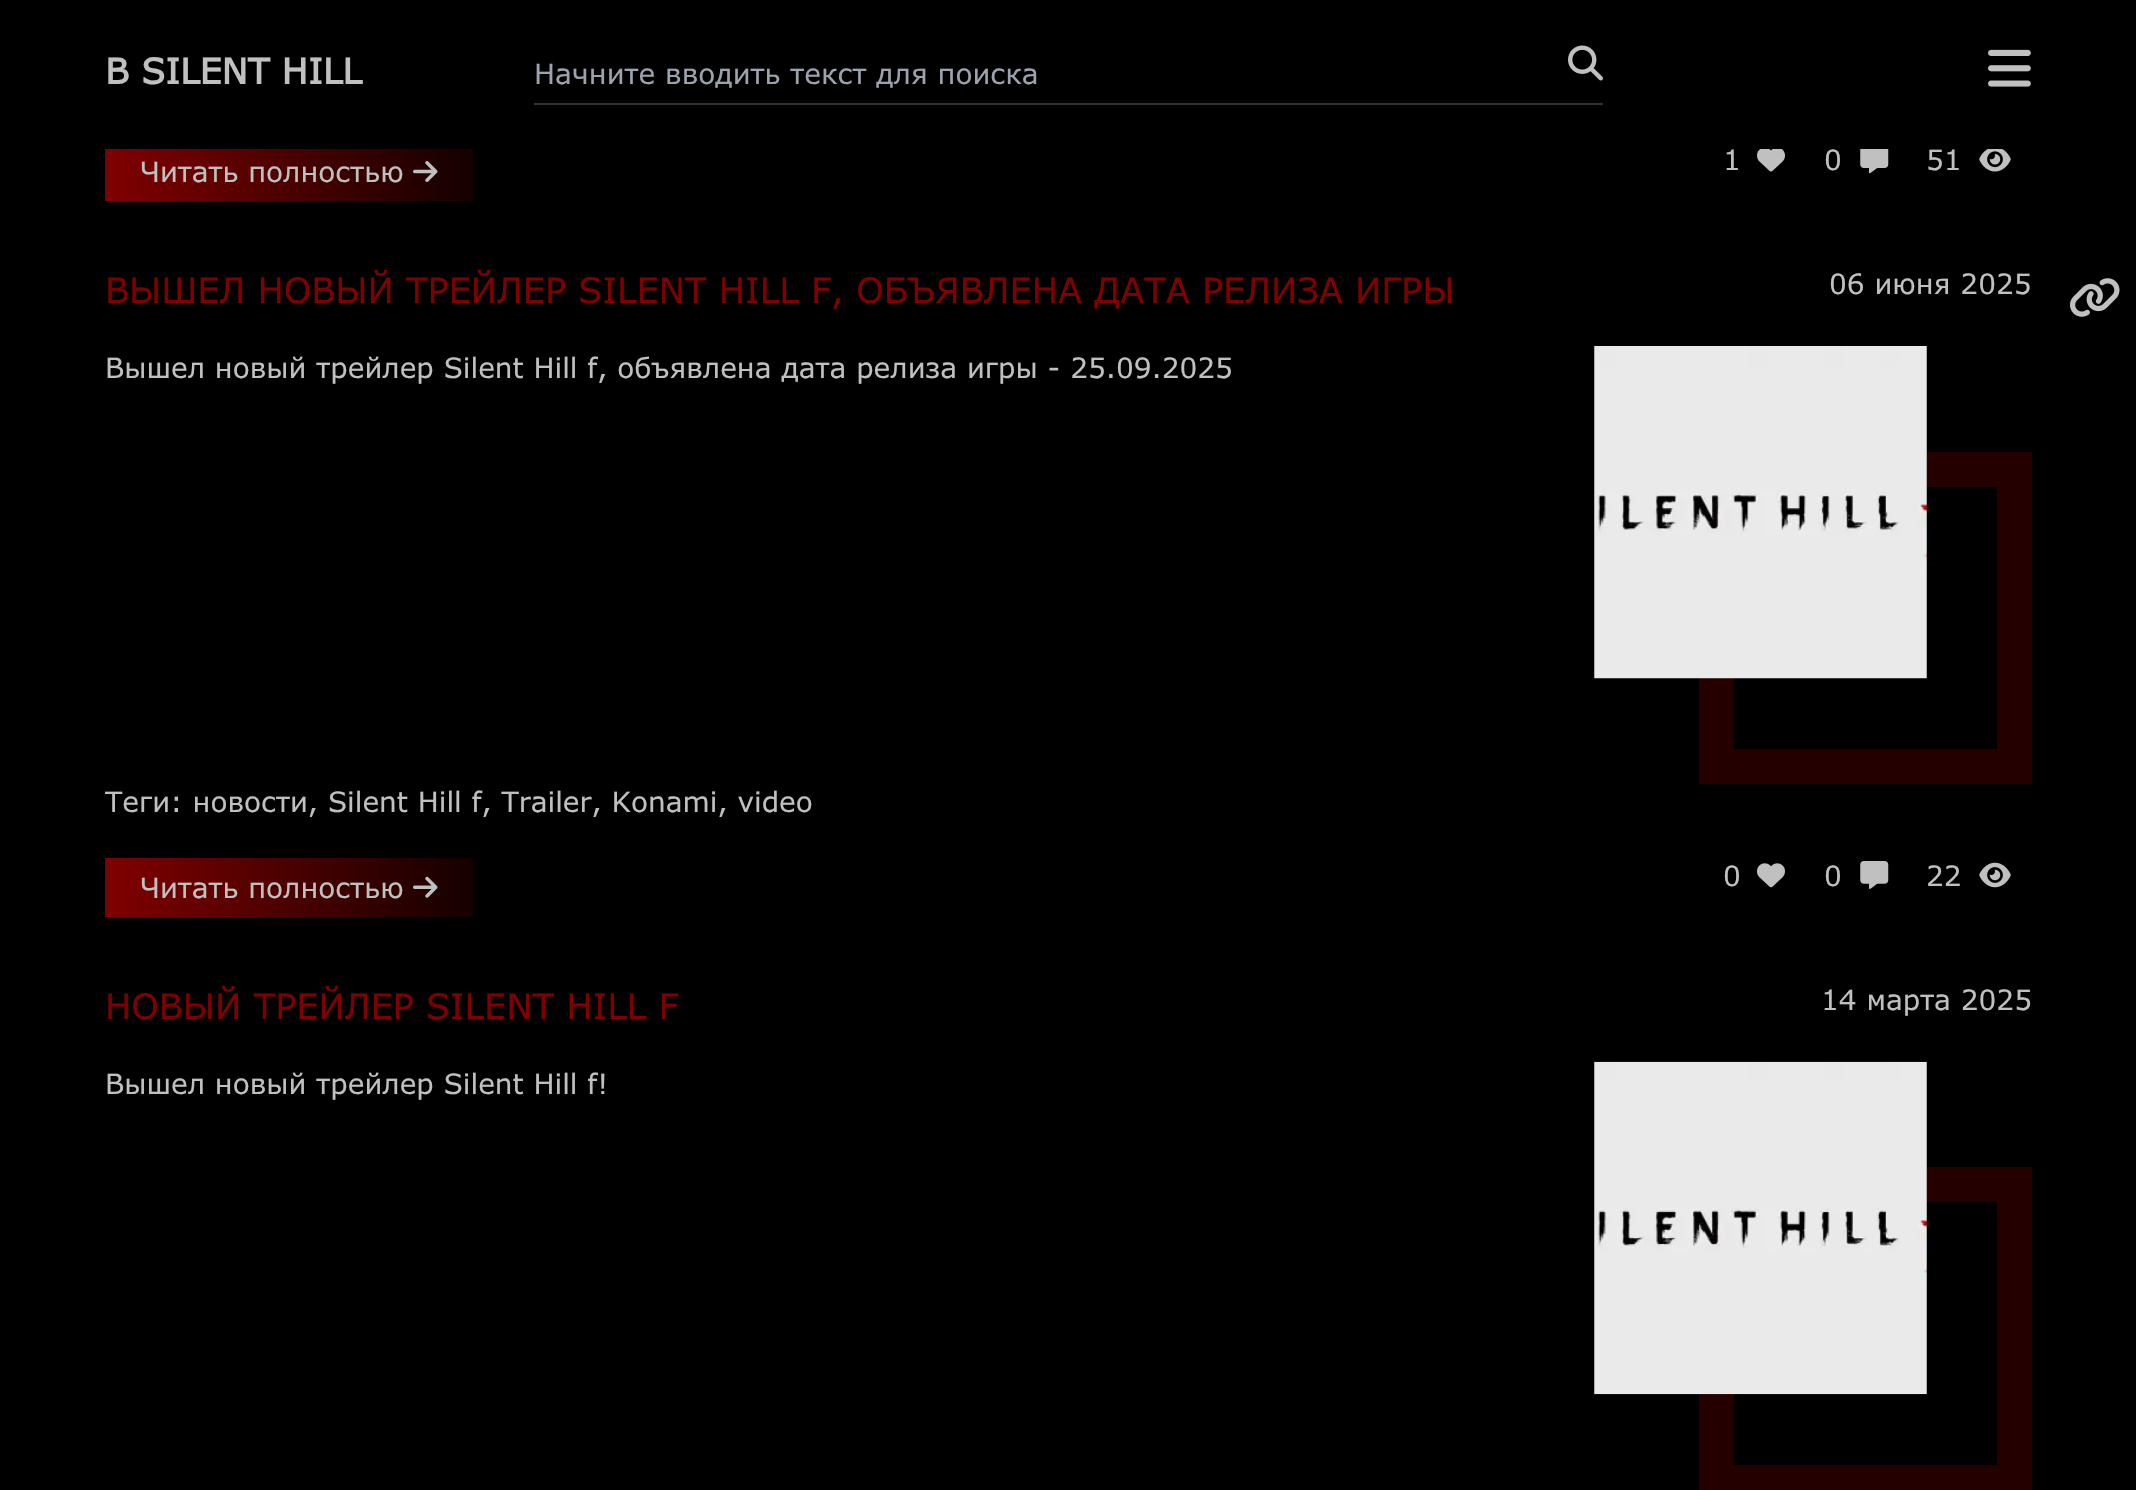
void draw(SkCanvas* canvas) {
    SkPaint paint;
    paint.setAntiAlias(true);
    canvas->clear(0xFF000000);
    SkFont font1(fontMgr->matchFamilyStyle("Verdana", SkFontStyle::Bold()), 35);
    font1.setSubpixel(true);
    paint.setColor(0xFFC0C0C0);
    canvas->drawString("В SILENT HILL", 105, 84, font1, paint);
    paint.setColor(0xFF333333);
    canvas->drawRect(SkRect::MakeXYWH(534, 103, 1069, 2), paint);
    SkFont font2(fontMgr->matchFamilyStyle("Verdana", SkFontStyle::Normal()), 28);
    font2.setSubpixel(true);
    paint.setColor(0xFF9CA3AF);
    canvas->drawString("Начните вводить текст для поиска", 534, 84, font2, paint);
    canvas->drawImageRect(SkImages::DeferredFromEncodedData(SkData::MakeFromFileName("img1.png")), SkRect::MakeXYWH(1568, 45, 35, 36), SkSamplingOptions());
    canvas->drawImageRect(SkImages::DeferredFromEncodedData(SkData::MakeFromFileName("img2.png")), SkRect::MakeXYWH(1988, 49, 43, 38), SkSamplingOptions());
    {
        const SkColor colors[] = {0xFF800000, 0xFF150000};
        const float stops[] = {0, 1};
        const SkPoint ends[] = {{105, 172}, {473, 172}};
        paint.setShader(SkGradientShader::MakeLinear(ends, colors, stops, 2, SkTileMode::kClamp));
        paint.setAlpha(255);
    }
    canvas->drawRect(SkRect::MakeXYWH(105, 149, 368, 52), paint);
    paint.setShader(nullptr);
    paint.setColor(0xFFC0C0C0);
    canvas->drawString("Читать полностью", 140, 182, font2, paint);
    canvas->drawImageRect(SkImages::DeferredFromEncodedData(SkData::MakeFromFileName("img3.png")), SkRect::MakeXYWH(413, 161, 25, 21), SkSamplingOptions());
    canvas->drawString("1", 1723, 170, font2, paint);
    canvas->drawImageRect(SkImages::DeferredFromEncodedData(SkData::MakeFromFileName("img4.png")), SkRect::MakeXYWH(1757, 149, 28, 23), SkSamplingOptions());
    canvas->drawString("0", 1824, 170, font2, paint);
    canvas->drawImageRect(SkImages::DeferredFromEncodedData(SkData::MakeFromFileName("img5.png")), SkRect::MakeXYWH(1860, 149, 29, 25), SkSamplingOptions());
    canvas->drawString("51", 1926, 170, font2, paint);
    canvas->drawImageRect(SkImages::DeferredFromEncodedData(SkData::MakeFromFileName("img6.png")), SkRect::MakeXYWH(1979, 149, 32, 23), SkSamplingOptions());
    SkFont font3(fontMgr->matchFamilyStyle("Verdana", SkFontStyle::Normal()), 35);
    font3.setSubpixel(true);
    paint.setColor(0xFF800000);
    canvas->drawString("ВЫШЕЛ НОВЫЙ ТРЕЙЛЕР SILENT HILL F, ОБЪЯВЛЕНА ДАТА РЕЛИЗА ИГРЫ", 105, 303, font3, paint);
    paint.setColor(0xFFC0C0C0);
    canvas->drawString("06 июня 2025", 1829, 294, font2, paint);
    canvas->drawString("Вышел новый трейлер Silent Hill f, объявлена дата релиза игры - 25.09.2025", 105, 378, font2, paint);
    canvas->drawString("Теги: новости, Silent Hill f, Trailer, Konami, video", 105, 812, font2, paint);
    paint.setStyle(SkPaint::kStroke_Style);
    paint.setStrokeWidth(35);
    paint.setColor(0xFF250000);
    canvas->drawRect(SkRect::MakeXYWH(1716.5f, 469.5f, 298, 297), paint);
    canvas->drawImageRect(SkImages::DeferredFromEncodedData(SkData::MakeFromFileName("img7.png")), SkRect::MakeXYWH(1594, 346, 333, 333), SkSamplingOptions());
    paint.setStyle(SkPaint::kFill_Style);
    {
        const SkColor colors[] = {0xFF800000, 0xFF150000};
        const float stops[] = {0, 1};
        const SkPoint ends[] = {{105, 887}, {473, 887}};
        paint.setShader(SkGradientShader::MakeLinear(ends, colors, stops, 2, SkTileMode::kClamp));
        paint.setAlpha(255);
    }
    canvas->drawRect(SkRect::MakeXYWH(105, 858, 368, 59), paint);
    paint.setShader(nullptr);
    paint.setColor(0xFFC0C0C0);
    canvas->drawString("Читать полностью", 140, 898, font2, paint);
    canvas->drawImageRect(SkImages::DeferredFromEncodedData(SkData::MakeFromFileName("img8.png")), SkRect::MakeXYWH(413, 876, 25, 22), SkSamplingOptions());
    canvas->drawString("0", 1723, 886, font2, paint);
    canvas->drawImageRect(SkImages::DeferredFromEncodedData(SkData::MakeFromFileName("img9.png")), SkRect::MakeXYWH(1757, 863, 28, 25), SkSamplingOptions());
    canvas->drawString("0", 1824, 886, font2, paint);
    canvas->drawImageRect(SkImages::DeferredFromEncodedData(SkData::MakeFromFileName("img10.png")), SkRect::MakeXYWH(1860, 861, 29, 28), SkSamplingOptions());
    canvas->drawString("22", 1926, 886, font2, paint);
    canvas->drawImageRect(SkImages::DeferredFromEncodedData(SkData::MakeFromFileName("img11.png")), SkRect::MakeXYWH(1979, 862, 32, 26), SkSamplingOptions());
    paint.setColor(0xFF800000);
    canvas->drawString("НОВЫЙ ТРЕЙЛЕР SILENT HILL F", 105, 1019, font3, paint);
    paint.setColor(0xFFC0C0C0);
    canvas->drawString("14 марта 2025", 1821, 1010, font2, paint);
    canvas->drawString("Вышел новый трейлер Silent Hill f!", 105, 1094, font2, paint);
    paint.setStyle(SkPaint::kStroke_Style);
    paint.setColor(0xFF250000);
    canvas->drawRect(SkRect::MakeXYWH(1716.5f, 1184.5f, 298, 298), paint);
    canvas->drawImageRect(SkImages::DeferredFromEncodedData(SkData::MakeFromFileName("img12.png")), SkRect::MakeXYWH(1594, 1061, 333, 334), SkSamplingOptions());
    canvas->drawImageRect(SkImages::DeferredFromEncodedData(SkData::MakeFromFileName("img13.png")), SkRect::MakeXYWH(2070, 278, 50, 39), SkSamplingOptions());
}
